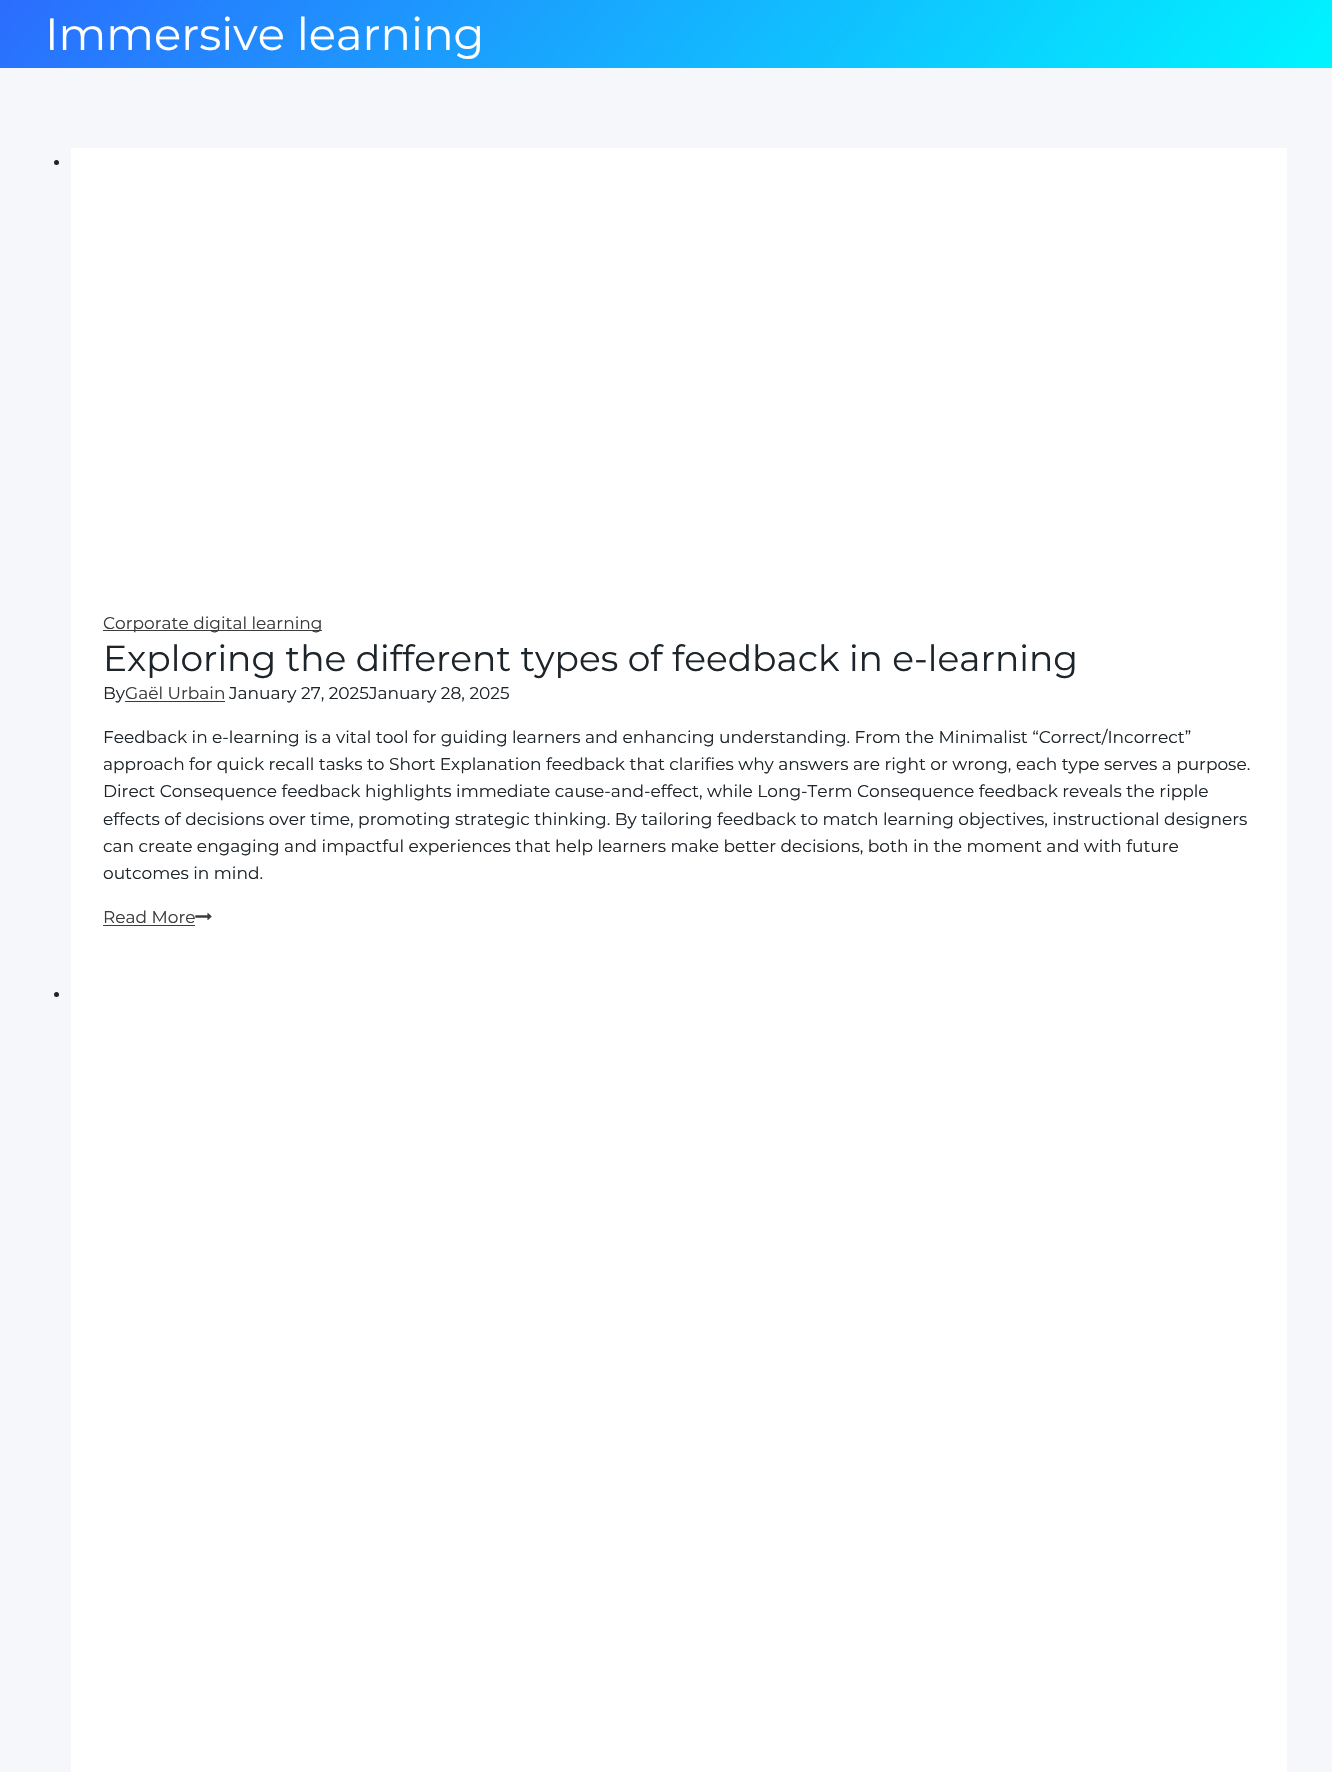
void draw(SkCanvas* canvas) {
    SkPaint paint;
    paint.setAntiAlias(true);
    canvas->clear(0xFFF5F7FA);
    {
        const SkColor colors[] = {0xFF2B6DFE, 0xFF00F2FF};
        const float stops[] = {0, 0.98f};
        const SkPoint ends[] = {{258, -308}, {1074, 376}};
        paint.setShader(SkGradientShader::MakeLinear(ends, colors, stops, 2, SkTileMode::kClamp));
        paint.setAlpha(255);
    }
    canvas->drawRect(SkRect::MakeXYWH(0, 0, 1332, 68), paint);
    SkFont font1(fontMgr->matchFamilyStyle("Montserrat", SkFontStyle::Normal()), 45);
    font1.setSubpixel(true);
    paint.setShader(nullptr);
    paint.setColor(0xFFFFFFFF);
    canvas->drawString("Immersive learning", 45, 50, font1, paint);
    paint.setColor(0xFF1E252A);
    canvas->drawCircle(56.5f, 162.5f, 2.5f, paint);
    paint.setColor(0xFFFFFFFF);
    canvas->drawRect(SkRect::MakeXYWH(71, 148, 1216, 1624), paint);
    paint.setColor(0xFF3C3B3B);
    canvas->drawRect(SkRect::MakeXYWH(103, 630, 219, 1), paint);
    SkFont font2(fontMgr->matchFamilyStyle("Montserrat", SkFontStyle::Normal()), 17);
    font2.setSubpixel(true);
    canvas->drawString("Corporate digital learning", 103, 629, font2, paint);
    SkFont font3(fontMgr->matchFamilyStyle("Montserrat", SkFontStyle::Normal()), 36);
    font3.setSubpixel(true);
    paint.setColor(0xFF1E252A);
    canvas->drawString("Exploring the different types of feedback in e-learning", 103, 671, font3, paint);
    canvas->drawString("By", 103, 699, font2, paint);
    paint.setColor(0xFF3C3B3B);
    canvas->drawRect(SkRect::MakeXYWH(125, 701, 100, 1), paint);
    canvas->drawString("Gaël Urbain", 125, 699, font2, paint);
    paint.setColor(0xFF1E252A);
    canvas->drawString("January 27, 2025January 28, 2025", 229, 699, font2, paint);
    canvas->drawString("Feedback in e-learning is a vital tool for guiding learners and enhancing understanding. From the Minimalist “Correct/Incorrect”", 103, 743, font2, paint);
    canvas->drawString("approach for quick recall tasks to Short Explanation feedback that clarifies why answers are right or wrong, each type serves a purpose.", 103, 770, font2, paint);
    canvas->drawString("Direct Consequence feedback highlights immediate cause-and-effect, while Long-Term Consequence feedback reveals the ripple", 103, 797, font2, paint);
    canvas->drawString("effects of decisions over time, promoting strategic thinking. By tailoring feedback to match learning objectives, instructional designers", 103, 825, font2, paint);
    canvas->drawString("can create engaging and impactful experiences that help learners make better decisions, both in the moment and with future", 103, 852, font2, paint);
    canvas->drawString("outcomes in mind.", 103, 879, font2, paint);
    paint.setColor(0xFF3C3B3B);
    canvas->drawString("Read More", 103, 923, font2, paint);
    canvas->drawRect(SkRect::MakeXYWH(103, 925, 92, 1), paint);
    canvas->drawImageRect(SkImages::DeferredFromEncodedData(SkData::MakeFromFileName("img1.png")), SkRect::MakeXYWH(195, 912, 17, 9), SkSamplingOptions());
    paint.setColor(0xFF1E252A);
    canvas->drawCircle(56.5f, 994.5f, 2.5f, paint);
}
